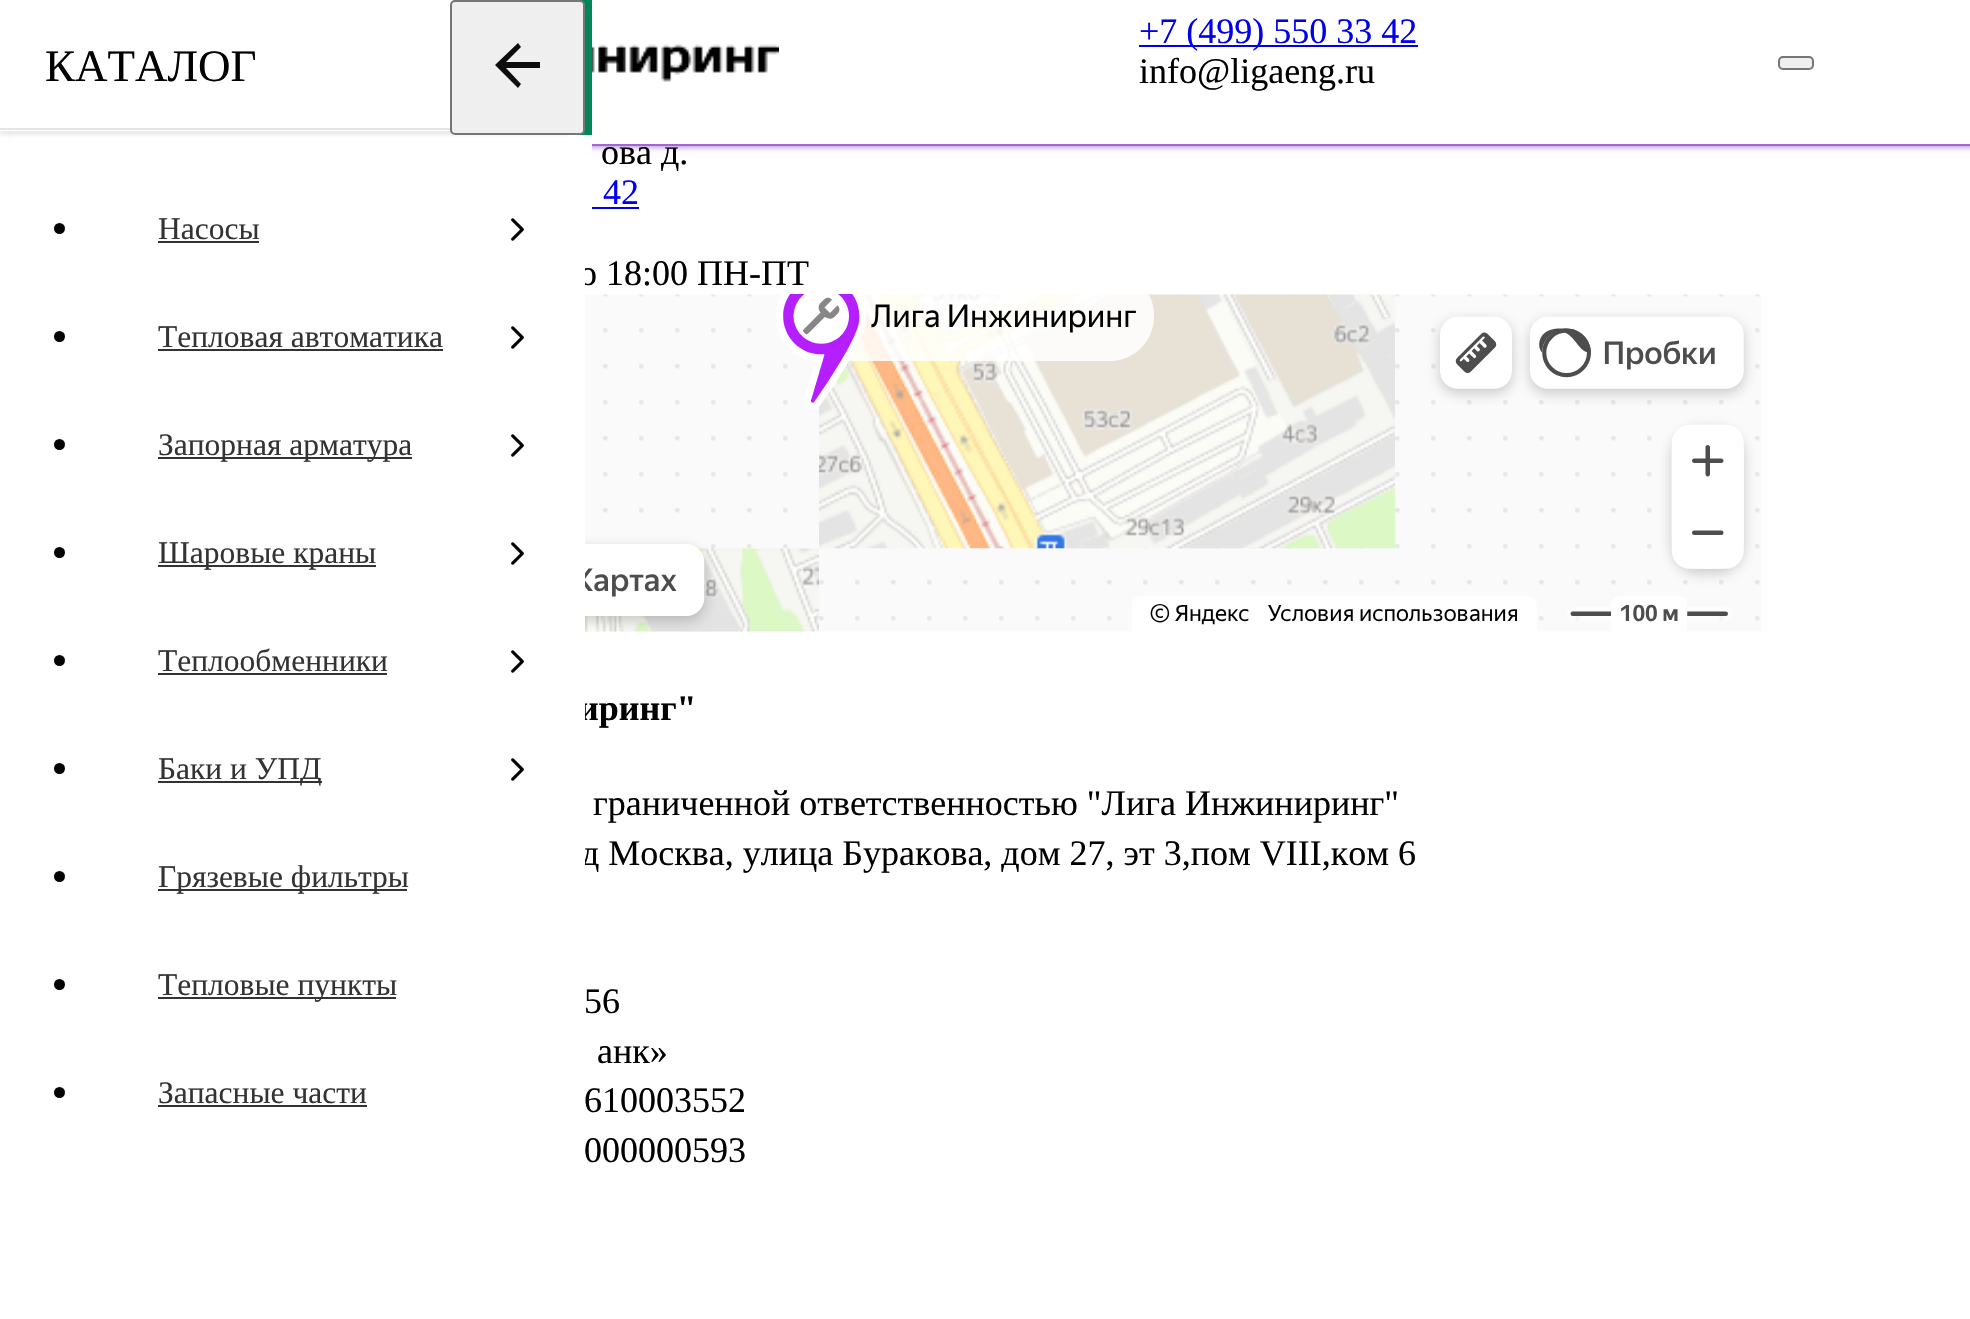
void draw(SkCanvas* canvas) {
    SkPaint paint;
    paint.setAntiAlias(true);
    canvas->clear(0xFFFFFFFF);
    paint.setColor(0xFFA266D3);
    paint.setMaskFilter(SkMaskFilter::MakeBlur(kNormal_SkBlurStyle, 3.5f));
    canvas->drawRect(SkRect::MakeXYWH(18, -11, 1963, 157), paint);
    paint.setMaskFilter(nullptr);
    SkFont font1(fontMgr->matchFamilyStyle("Liberation Serif", SkFontStyle::Normal()), 36);
    font1.setSubpixel(true);
    paint.setColor(0xFF000000);
    canvas->drawString("о 18:00 ПН-ПТ", 579, 285, font1, paint);
    SkFont font2(fontMgr->matchFamilyStyle("Liberation Serif", SkFontStyle::Bold()), 36);
    font2.setSubpixel(true);
    canvas->drawString("иринг\"", 578, 720, font2, paint);
    canvas->drawString("д Москва, улица Буракова, дом 27, эт 3,пом VIII,ком 6", 581, 865, font1, paint);
    paint.setColor(0xFFFFFFFF);
    canvas->drawRect(SkRect::MakeXYWH(11, 131, 574, 741), paint);
    paint.setColor(0x1A323232);
    paint.setMaskFilter(SkMaskFilter::MakeBlur(kNormal_SkBlurStyle, 2));
    canvas->drawRect(SkRect::MakeXYWH(0, 5, 585, 130), paint);
    paint.setMaskFilter(nullptr);
    paint.setColor(0xFFFFFFFF);
    canvas->drawRect(SkRect::MakeXYWH(0, 0, 455, 131), paint);
    paint.setColor(0xFFE4E5E6);
    canvas->drawRect(SkRect::MakeXYWH(0, 128, 450, 2), paint);
    SkFont font3(fontMgr->matchFamilyStyle("Liberation Serif", SkFontStyle::Normal()), 45);
    font3.setSubpixel(true);
    paint.setColor(0xFF000000);
    canvas->drawString("КАТАЛОГ", 45, 81, font3, paint);
    paint.setColor(0xFF008658);
    canvas->drawRect(SkRect::MakeXYWH(580, 0, 12, 135), paint);
    paint.setColor(0xFFEFEFEF);
    canvas->drawRoundRect(SkRect::MakeXYWH(451, 1, 133, 133), 4, 4, paint);
    paint.setStyle(SkPaint::kStroke_Style);
    paint.setStrokeWidth(2);
    paint.setColor(0xFF767676);
    canvas->drawRoundRect(SkRect::MakeXYWH(451, 1, 133, 133), 4, 4, paint);
    paint.setStyle(SkPaint::kFill_Style);
    paint.setColor(0xFF0D0D0D);
    canvas->drawPath(SkPathBuilder().moveTo(540, 62).lineTo(506, 62).lineTo(521, 47).lineTo(518, 43).lineTo(495, 65).lineTo(518, 88).lineTo(521, 84).lineTo(506, 68).lineTo(540, 68).close().detach(), paint);
    paint.setColor(0xFFFFFFFF);
    canvas->drawRect(SkRect::MakeXYWH(569, 135, 23, 18), paint);
    paint.setColor(0xFF000000);
    canvas->drawCircle(59.5f, 228.5f, 5.5f, paint);
    SkFont font4(fontMgr->matchFamilyStyle("Liberation Serif", SkFontStyle::Normal()), 31.5f);
    font4.setSubpixel(true);
    paint.setColor(0xFF333333);
    canvas->drawString("Насосы", 158, 239, font4, paint);
    canvas->drawRect(SkRect::MakeXYWH(158, 241, 101, 2), paint);
    canvas->drawImageRect(SkImages::DeferredFromEncodedData(SkData::MakeFromFileName("img1.png")), SkRect::MakeXYWH(511, 218, 13, 23), SkSamplingOptions());
    paint.setColor(0xFF000000);
    canvas->drawCircle(59.5f, 336.5f, 5.5f, paint);
    paint.setColor(0xFF333333);
    canvas->drawString("Тепловая автоматика", 158, 347, font4, paint);
    canvas->drawRect(SkRect::MakeXYWH(158, 349, 285, 2), paint);
    canvas->drawImageRect(SkImages::DeferredFromEncodedData(SkData::MakeFromFileName("img1.png")), SkRect::MakeXYWH(511, 326, 13, 23), SkSamplingOptions());
    paint.setColor(0xFF000000);
    canvas->drawCircle(59.5f, 444.5f, 5.5f, paint);
    paint.setColor(0xFF333333);
    canvas->drawRect(SkRect::MakeXYWH(158, 457, 254, 2), paint);
    canvas->drawString("Запорная арматура", 158, 455, font4, paint);
    canvas->drawImageRect(SkImages::DeferredFromEncodedData(SkData::MakeFromFileName("img1.png")), SkRect::MakeXYWH(511, 434, 13, 23), SkSamplingOptions());
    paint.setColor(0xFF000000);
    canvas->drawCircle(59.5f, 552.5f, 5.5f, paint);
    paint.setColor(0xFF333333);
    canvas->drawRect(SkRect::MakeXYWH(158, 565, 218, 2), paint);
    canvas->drawString("Шаровые краны", 158, 563, font4, paint);
    canvas->drawImageRect(SkImages::DeferredFromEncodedData(SkData::MakeFromFileName("img1.png")), SkRect::MakeXYWH(511, 542, 13, 23), SkSamplingOptions());
    paint.setColor(0xFF000000);
    canvas->drawCircle(59.5f, 660.5f, 5.5f, paint);
    paint.setColor(0xFF333333);
    canvas->drawString("Теплообменники", 158, 671, font4, paint);
    canvas->drawRect(SkRect::MakeXYWH(158, 673, 229, 2), paint);
    canvas->drawImageRect(SkImages::DeferredFromEncodedData(SkData::MakeFromFileName("img1.png")), SkRect::MakeXYWH(511, 650, 13, 23), SkSamplingOptions());
    paint.setColor(0xFF000000);
    canvas->drawCircle(59.5f, 768.5f, 5.5f, paint);
    paint.setColor(0xFF333333);
    canvas->drawRect(SkRect::MakeXYWH(158, 781, 164, 2), paint);
    canvas->drawString("Баки и УПД", 158, 779, font4, paint);
    canvas->drawImageRect(SkImages::DeferredFromEncodedData(SkData::MakeFromFileName("img1.png")), SkRect::MakeXYWH(511, 758, 13, 23), SkSamplingOptions());
    paint.setColor(0xFF000000);
    canvas->drawCircle(59.5f, 876.5f, 5.5f, paint);
    paint.setColor(0xFF333333);
    canvas->drawRect(SkRect::MakeXYWH(158, 889, 249, 2), paint);
    canvas->drawString("Грязевые фильтры", 158, 887, font4, paint);
    paint.setColor(0xFF000000);
    canvas->drawCircle(59.5f, 984.5f, 5.5f, paint);
    paint.setColor(0xFF333333);
    canvas->drawRect(SkRect::MakeXYWH(158, 997, 238, 2), paint);
    canvas->drawString("Тепловые пункты", 158, 995, font4, paint);
    paint.setColor(0xFF000000);
    canvas->drawCircle(59.5f, 1092.5f, 5.5f, paint);
    paint.setColor(0xFF333333);
    canvas->drawString("Запасные части", 158, 1103, font4, paint);
    canvas->drawRect(SkRect::MakeXYWH(158, 1105, 209, 2), paint);
    paint.setColor(0xFFFFFFFF);
    canvas->drawRect(SkRect::MakeXYWH(592, 0, 1378, 144), paint);
    paint.setColor(0xFFA266D3);
    canvas->drawRect(SkRect::MakeXYWH(592, 144, 1378, 2), paint);
    canvas->drawImageRect(SkImages::DeferredFromEncodedData(SkData::MakeFromFileName("img2.png")), SkRect::MakeXYWH(592, 0, 187, 106), SkSamplingOptions());
    paint.setColor(0xFF0000EE);
    canvas->drawRect(SkRect::MakeXYWH(1139, 45, 279, 2), paint);
    canvas->drawString("+7 (499) 550 33 42", 1139, 43, font1, paint);
    paint.setColor(0xFF000000);
    canvas->drawString("info@ligaeng.ru", 1139, 83, font1, paint);
    paint.setColor(0xFFEFEFEF);
    canvas->drawRoundRect(SkRect::MakeXYWH(1779, 57, 34, 12), 4, 4, paint);
    paint.setStyle(SkPaint::kStroke_Style);
    paint.setColor(0xFF767676);
    canvas->drawRoundRect(SkRect::MakeXYWH(1779, 57, 34, 12), 4, 4, paint);
    paint.setStyle(SkPaint::kFill_Style);
    paint.setColor(0xFF000000);
    canvas->drawString("ова д.", 601, 164, font1, paint);
    paint.setColor(0xFF0000EE);
    canvas->drawString("42", 603, 204, font1, paint);
    canvas->drawRect(SkRect::MakeXYWH(592, 207, 47, 2), paint);
    canvas->drawImageRect(SkImages::DeferredFromEncodedData(SkData::MakeFromFileName("img3.png")), SkRect::MakeXYWH(585, 294, 1176, 338), SkSamplingOptions());
    paint.setColor(0xFF000000);
    canvas->drawString("граниченной ответственностью \"Лига Инжиниринг\"", 593, 815, font1, paint);
    canvas->drawString("56", 584, 1013, font1, paint);
    canvas->drawString("анк»", 597, 1063, font1, paint);
    canvas->drawString("610003552", 584, 1112, font1, paint);
    canvas->drawString("000000593", 584, 1162, font1, paint);
}
